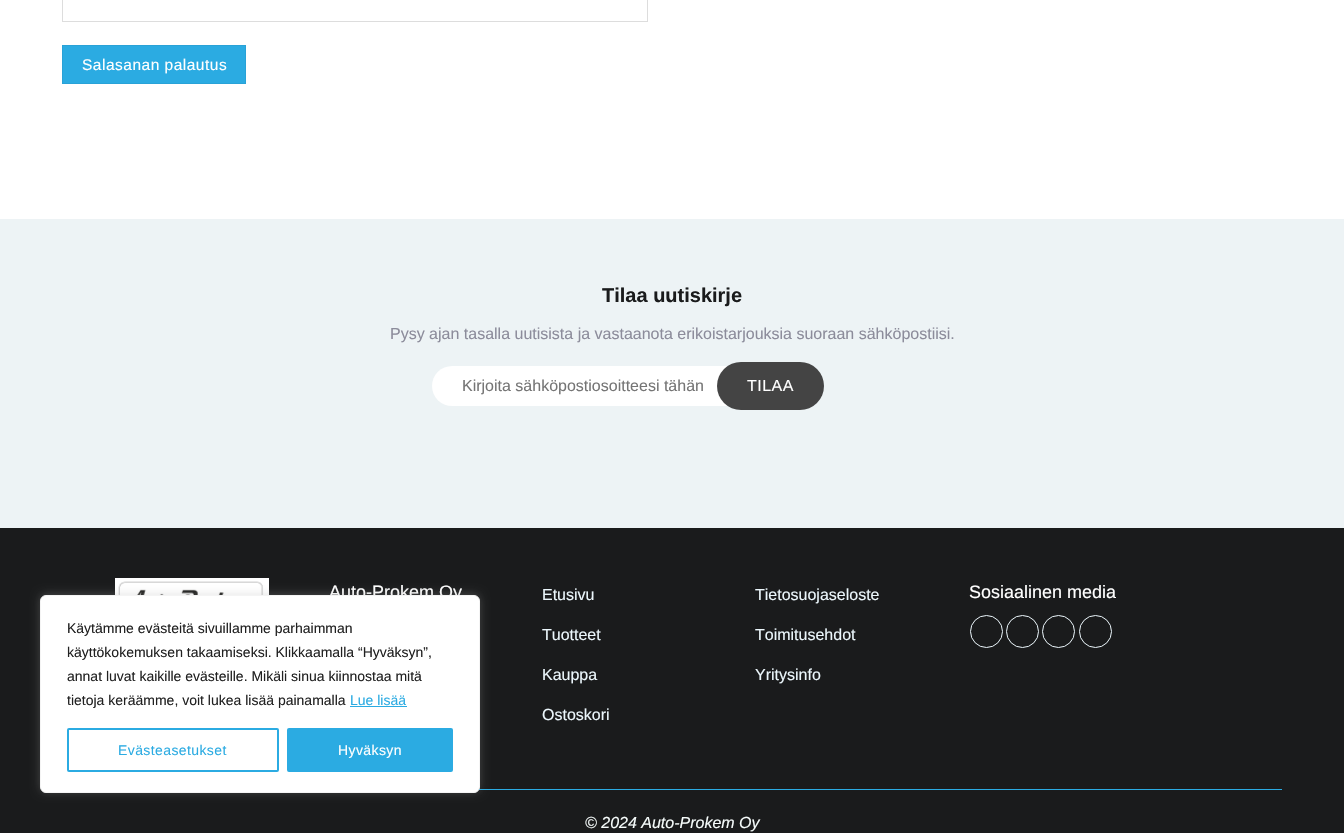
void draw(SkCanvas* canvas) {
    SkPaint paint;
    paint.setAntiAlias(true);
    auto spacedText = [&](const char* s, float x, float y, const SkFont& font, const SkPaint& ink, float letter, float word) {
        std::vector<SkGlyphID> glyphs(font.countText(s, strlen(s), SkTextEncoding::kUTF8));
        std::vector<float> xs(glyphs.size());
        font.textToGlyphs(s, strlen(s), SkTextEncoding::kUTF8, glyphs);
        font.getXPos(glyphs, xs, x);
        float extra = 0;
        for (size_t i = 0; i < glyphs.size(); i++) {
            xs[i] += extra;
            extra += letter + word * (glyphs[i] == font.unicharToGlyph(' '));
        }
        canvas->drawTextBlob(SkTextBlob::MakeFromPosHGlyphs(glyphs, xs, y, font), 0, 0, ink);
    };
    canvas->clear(0xFFFFFFFF);
    paint.setStyle(SkPaint::kStroke_Style);
    paint.setStrokeWidth(1);
    paint.setColor(0xFFDDDDDD);
    canvas->drawRect(SkRect::MakeXYWH(62.5f, -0.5f, 585, 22), paint);
    paint.setStyle(SkPaint::kFill_Style);
    paint.setColor(0xFF2BABE2);
    canvas->drawRect(SkRect::MakeXYWH(62.5f, 45.5f, 183, 38), paint);
    paint.setStyle(SkPaint::kStroke_Style);
    paint.setColor(0xFF29A2D7);
    canvas->drawRect(SkRect::MakeXYWH(62.5f, 45.5f, 183, 38), paint);
    SkFont font1(fontMgr->matchFamilyStyle("Liberation Sans", SkFontStyle::Normal()), 15.5f);
    font1.setSubpixel(true);
    paint.setStyle(SkPaint::kFill_Style);
    paint.setColor(0xFFFFFFFF);
    spacedText("Salasanan palautus", 82, 70, font1, paint, 0.5f, 0);
    paint.setColor(0xFFEDF3F5);
    canvas->drawRect(SkRect::MakeXYWH(0, 219, 1344, 309), paint);
    SkFont font2(fontMgr->matchFamilyStyle("Liberation Sans", SkFontStyle::Bold()), 20);
    font2.setSubpixel(true);
    paint.setColor(0xFF1A1B1C);
    canvas->drawString("Tilaa uutiskirje", 602, 302, font2, paint);
    SkFont font3(fontMgr->matchFamilyStyle("Liberation Sans", SkFontStyle::Normal()), 16);
    font3.setSubpixel(true);
    paint.setColor(0xFF8C8C9B);
    canvas->drawString("Pysy ajan tasalla uutisista ja vastaanota erikoistarjouksia suoraan sähköpostiisi.", 390, 339, font3, paint);
    paint.setColor(0xFFFFFFFF);
    canvas->drawRoundRect(SkRect::MakeXYWH(432, 366, 325, 40), 20, 20, paint);
    paint.setColor(0xFF757575);
    canvas->drawString("Kirjoita sähköpostiosoitteesi tähän", 462, 391, font3, paint);
    paint.setColor(0xFF444444);
    canvas->drawRoundRect(SkRect::MakeXYWH(717, 362, 107, 48), 24, 24, paint);
    paint.setColor(0xFFFFFFFF);
    spacedText("TILAA", 747, 391, font3, paint, 0.5f, 0);
    paint.setColor(0xFF1A1B1C);
    canvas->drawRect(SkRect::MakeXYWH(0, 528, 1344, 305), paint);
    canvas->drawImageRect(SkImages::DeferredFromEncodedData(SkData::MakeFromFileName("img1.png")), SkRect::MakeXYWH(115, 578, 154, 17), SkSamplingOptions());
    SkFont font4(fontMgr->matchFamilyStyle("Liberation Sans", SkFontStyle::Normal()), 18);
    font4.setSubpixel(true);
    paint.setColor(0xFFFFFFFF);
    canvas->drawString("Auto-Prokem Oy", 329, 598, font4, paint);
    paint.setColor(0xFFECF7FC);
    canvas->drawString("Etusivu", 542, 600, font3, paint);
    canvas->drawString("Tuotteet", 542, 640, font3, paint);
    canvas->drawString("Kauppa", 542, 680, font3, paint);
    canvas->drawString("Ostoskori", 542, 720, font3, paint);
    canvas->drawString("Tietosuojaseloste", 755, 600, font3, paint);
    canvas->drawString("Toimitusehdot", 755, 640, font3, paint);
    canvas->drawString("Yritysinfo", 755, 680, font3, paint);
    paint.setColor(0xFFFFFFFF);
    canvas->drawString("Sosiaalinen media", 969, 598, font4, paint);
    paint.setStyle(SkPaint::kStroke_Style);
    paint.setColor(0xFFECF7FC);
    canvas->drawCircle(986.5f, 631.5f, 16, paint);
    canvas->drawCircle(1022.5f, 631.5f, 16, paint);
    canvas->drawCircle(1058.5f, 631.5f, 16, paint);
    canvas->drawCircle(1095.5f, 631.5f, 16, paint);
    paint.setStyle(SkPaint::kFill_Style);
    paint.setColor(0xFF2BABE2);
    canvas->drawRect(SkRect::MakeXYWH(479, 789, 803, 1), paint);
    SkFont font5(fontMgr->matchFamilyStyle("Liberation Sans", SkFontStyle::Italic()), 16);
    font5.setSubpixel(true);
    paint.setColor(0xFFF6FCFB);
    canvas->drawString("© 2024 Auto-Prokem Oy", 585, 828, font5, paint);
    paint.setColor(0x4DACABAB);
    paint.setMaskFilter(SkMaskFilter::MakeBlur(kNormal_SkBlurStyle, 5));
    canvas->drawRoundRect(SkRect::MakeXYWH(40, 594, 440, 198), 6, 6, paint);
    paint.setMaskFilter(nullptr);
    paint.setColor(0xFFFFFFFF);
    canvas->drawRoundRect(SkRect::MakeXYWH(40.5f, 595.5f, 439, 197), 5.5f, 5.5f, paint);
    paint.setStyle(SkPaint::kStroke_Style);
    paint.setColor(0xFFF4F4F4);
    canvas->drawRoundRect(SkRect::MakeXYWH(40.5f, 595.5f, 439, 197), 5.5f, 5.5f, paint);
    SkFont font6(fontMgr->matchFamilyStyle("Liberation Sans", SkFontStyle::Normal()), 14);
    font6.setSubpixel(true);
    paint.setStyle(SkPaint::kFill_Style);
    paint.setColor(0xFF212121);
    canvas->drawString("Käytämme evästeitä sivuillamme parhaimman", 67, 633, font6, paint);
    canvas->drawString("käyttökokemuksen takaamiseksi. Klikkaamalla “Hyväksyn”,", 67, 657, font6, paint);
    canvas->drawString("annat luvat kaikille evästeille. Mikäli sinua kiinnostaa mitä", 67, 681, font6, paint);
    canvas->drawString("tietoja keräämme, voit lukea lisää painamalla", 67, 705, font6, paint);
    paint.setColor(0xFF2BABE2);
    canvas->drawString("Lue lisää", 350, 705, font6, paint);
    canvas->drawRect(SkRect::MakeXYWH(350, 706, 57, 1), paint);
    paint.setStyle(SkPaint::kStroke_Style);
    paint.setStrokeWidth(2);
    canvas->drawRoundRect(SkRect::MakeXYWH(68, 729, 210, 42), 1, 1, paint);
    paint.setStyle(SkPaint::kFill_Style);
    spacedText("Evästeasetukset", 118, 755, font6, paint, 0.4f, 0);
    canvas->drawRoundRect(SkRect::MakeXYWH(288, 729, 164, 42), 1, 1, paint);
    paint.setStyle(SkPaint::kStroke_Style);
    canvas->drawRoundRect(SkRect::MakeXYWH(288, 729, 164, 42), 1, 1, paint);
    paint.setStyle(SkPaint::kFill_Style);
    paint.setColor(0xFFFFFFFF);
    spacedText("Hyväksyn", 338, 755, font6, paint, 0.4f, 0);
}
